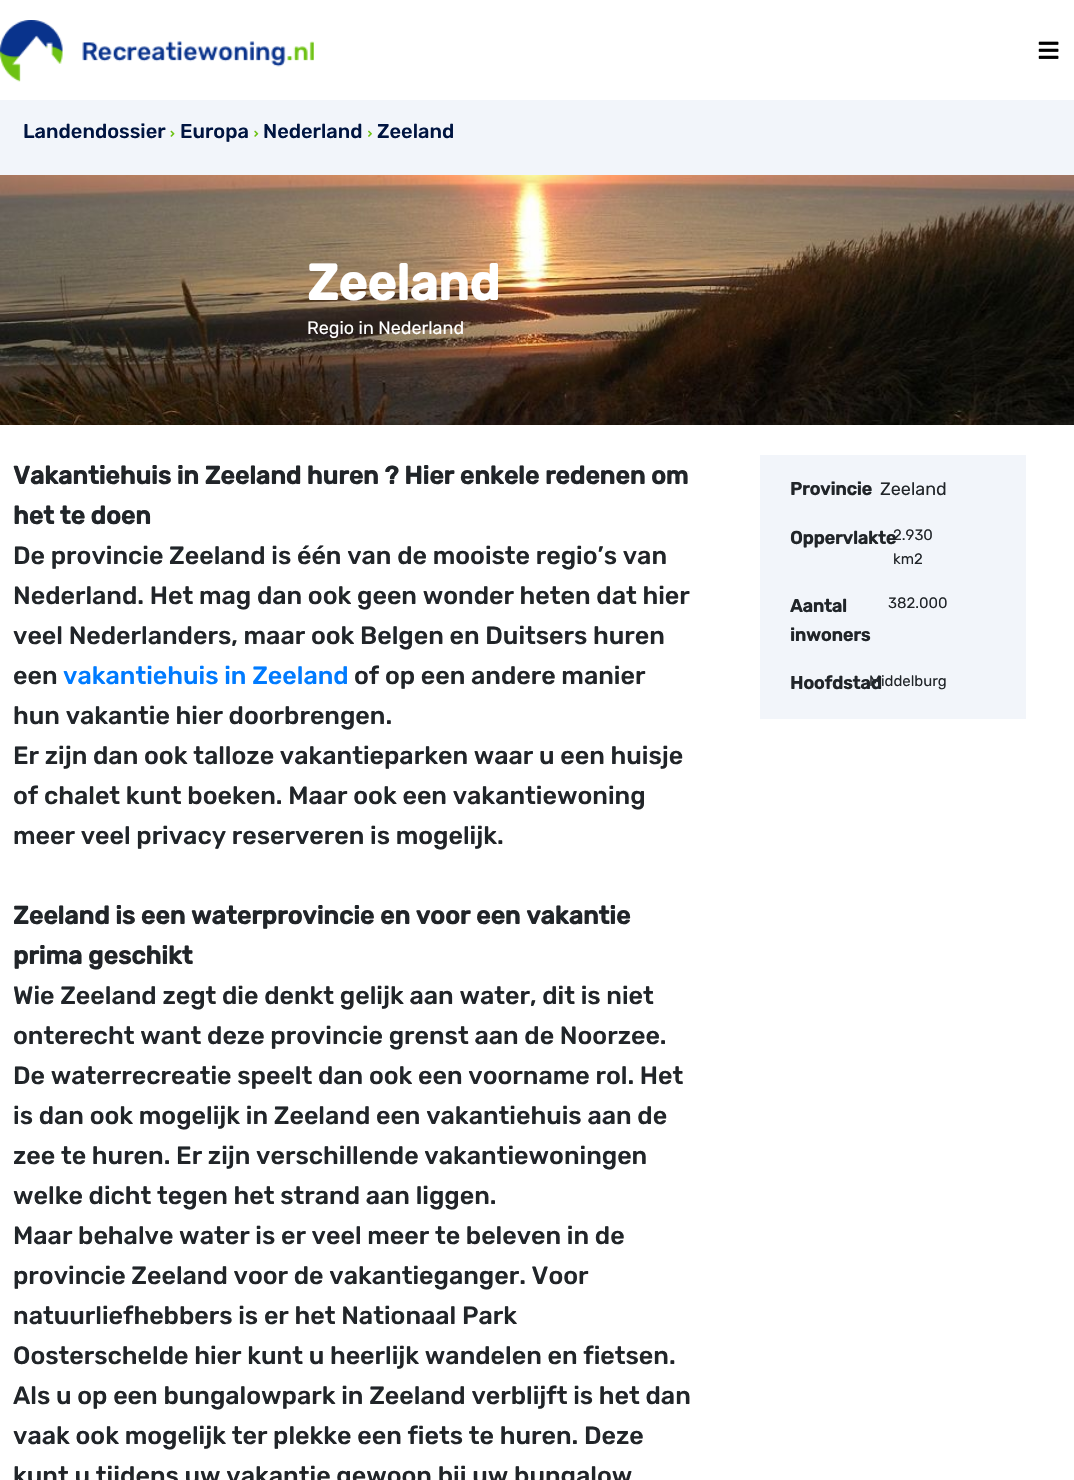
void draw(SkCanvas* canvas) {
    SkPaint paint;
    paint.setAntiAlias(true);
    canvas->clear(0xFFFFFFFF);
    canvas->drawImageRect(SkImages::DeferredFromEncodedData(SkData::MakeFromFileName("img1.png")), SkRect::MakeXYWH(0, 20, 314, 62), SkSamplingOptions());
    canvas->drawImageRect(SkImages::DeferredFromEncodedData(SkData::MakeFromFileName("img2.png")), SkRect::MakeXYWH(1038, 41, 21, 18), SkSamplingOptions());
    paint.setColor(0xFFF2F5FA);
    canvas->drawRect(SkRect::MakeXYWH(0, 100, 1074, 75), paint);
    SkFont font1(fontMgr->matchFamilyStyle("Rubik", SkFontStyle(500, SkFontStyle::kNormal_Width, SkFontStyle::kUpright_Slant)), 20);
    font1.setSubpixel(true);
    paint.setColor(0xFF001541);
    canvas->drawString("Landendossier", 23, 138, font1, paint);
    canvas->drawImageRect(SkImages::DeferredFromEncodedData(SkData::MakeFromFileName("img3.png")), SkRect::MakeXYWH(170, 130, 5, 7), SkSamplingOptions());
    canvas->drawString("Europa", 180, 138, font1, paint);
    canvas->drawImageRect(SkImages::DeferredFromEncodedData(SkData::MakeFromFileName("img4.png")), SkRect::MakeXYWH(254, 130, 5, 7), SkSamplingOptions());
    canvas->drawString("Nederland", 263, 138, font1, paint);
    canvas->drawImageRect(SkImages::DeferredFromEncodedData(SkData::MakeFromFileName("img5.png")), SkRect::MakeXYWH(368, 130, 4, 7), SkSamplingOptions());
    canvas->drawString("Zeeland", 377, 138, font1, paint);
    canvas->drawImageRect(SkImages::DeferredFromEncodedData(SkData::MakeFromFileName("img6.png")), SkRect::MakeXYWH(0, 175, 1074, 250), SkSamplingOptions());
    SkFont font2(fontMgr->matchFamilyStyle("Rubik", SkFontStyle::Bold()), 50);
    font2.setSubpixel(true);
    paint.setColor(0xFFFFFFFF);
    canvas->drawString("Zeeland", 307, 300, font2, paint);
    SkFont font3(fontMgr->matchFamilyStyle("Rubik", SkFontStyle::Normal()), 18);
    font3.setSubpixel(true);
    canvas->drawString("Regio in Nederland", 307, 334, font3, paint);
    SkFont font4(fontMgr->matchFamilyStyle("Rubik", SkFontStyle::Bold()), 25);
    font4.setSubpixel(true);
    paint.setColor(0xFF212529);
    canvas->drawString("Vakantiehuis in Zeeland huren ? Hier enkele redenen om", 13, 484, font4, paint);
    canvas->drawString("het te doen", 13, 524, font4, paint);
    SkFont font5(fontMgr->matchFamilyStyle("Rubik", SkFontStyle(500, SkFontStyle::kNormal_Width, SkFontStyle::kUpright_Slant)), 25);
    font5.setSubpixel(true);
    canvas->drawString("De provincie Zeeland is één van de mooiste regio’s van", 13, 564, font5, paint);
    canvas->drawString("Nederland. Het mag dan ook geen wonder heten dat hier", 13, 604, font5, paint);
    canvas->drawString("veel Nederlanders, maar ook Belgen en Duitsers huren", 13, 644, font5, paint);
    canvas->drawString("een", 13, 684, font5, paint);
    paint.setColor(0xFF007BFF);
    canvas->drawString("vakantiehuis in Zeeland", 63, 684, font5, paint);
    paint.setColor(0xFF212529);
    canvas->drawString("of op een andere manier", 354, 684, font5, paint);
    canvas->drawString("hun vakantie hier doorbrengen.", 13, 724, font5, paint);
    canvas->drawString("Er zijn dan ook talloze vakantieparken waar u een huisje", 13, 764, font5, paint);
    canvas->drawString("of chalet kunt boeken. Maar ook een vakantiewoning", 13, 804, font5, paint);
    canvas->drawString("meer veel privacy reserveren is mogelijk.", 13, 844, font5, paint);
    canvas->drawString("Zeeland is een waterprovincie en voor een vakantie", 13, 924, font4, paint);
    canvas->drawString("prima geschikt", 13, 964, font4, paint);
    canvas->drawString("Wie Zeeland zegt die denkt gelijk aan water, dit is niet", 13, 1004, font5, paint);
    canvas->drawString("onterecht want deze provincie grenst aan de Noorzee.", 13, 1044, font5, paint);
    canvas->drawString("De waterrecreatie speelt dan ook een voorname rol. Het", 13, 1084, font5, paint);
    canvas->drawString("is dan ook mogelijk in Zeeland een vakantiehuis aan de", 13, 1124, font5, paint);
    canvas->drawString("zee te huren. Er zijn verschillende vakantiewoningen", 13, 1164, font5, paint);
    canvas->drawString("welke dicht tegen het strand aan liggen.", 13, 1204, font5, paint);
    canvas->drawString("Maar behalve water is er veel meer te beleven in de", 13, 1244, font5, paint);
    canvas->drawString("provincie Zeeland voor de vakantieganger. Voor", 13, 1284, font5, paint);
    canvas->drawString("natuurliefhebbers is er het Nationaal Park", 13, 1324, font5, paint);
    canvas->drawString("Oosterschelde hier kunt u heerlijk wandelen en fietsen.", 13, 1364, font5, paint);
    canvas->drawString("Als u op een bungalowpark in Zeeland verblijft is het dan", 13, 1404, font5, paint);
    canvas->drawString("vaak ook mogelijk ter plekke een fiets te huren. Deze", 13, 1444, font5, paint);
    canvas->drawString("kunt u tijdens uw vakantie gewoon bij uw bungalow", 13, 1484, font5, paint);
    paint.setColor(0xFFF2F5FA);
    canvas->drawRect(SkRect::MakeXYWH(760, 455, 266, 264), paint);
    SkFont font6(fontMgr->matchFamilyStyle("Rubik", SkFontStyle::Bold()), 18);
    font6.setSubpixel(true);
    paint.setColor(0xFF212529);
    canvas->drawString("Provincie", 790, 495, font6, paint);
    canvas->drawString("Zeeland", 880, 495, font3, paint);
    canvas->drawString("Oppervlakte", 790, 544, font6, paint);
    SkFont font7(fontMgr->matchFamilyStyle("Rubik", SkFontStyle::Normal()), 15);
    font7.setSubpixel(true);
    canvas->drawString("2.930", 893, 540, font7, paint);
    canvas->drawString("km2", 893, 564, font7, paint);
    canvas->drawString("Aantal", 790, 612, font6, paint);
    canvas->drawString("inwoners", 790, 641, font6, paint);
    canvas->drawString("382.000", 888, 608, font7, paint);
    canvas->drawString("Hoofdstad", 790, 689, font6, paint);
    canvas->drawString("Middelburg", 869, 686, font7, paint);
}
